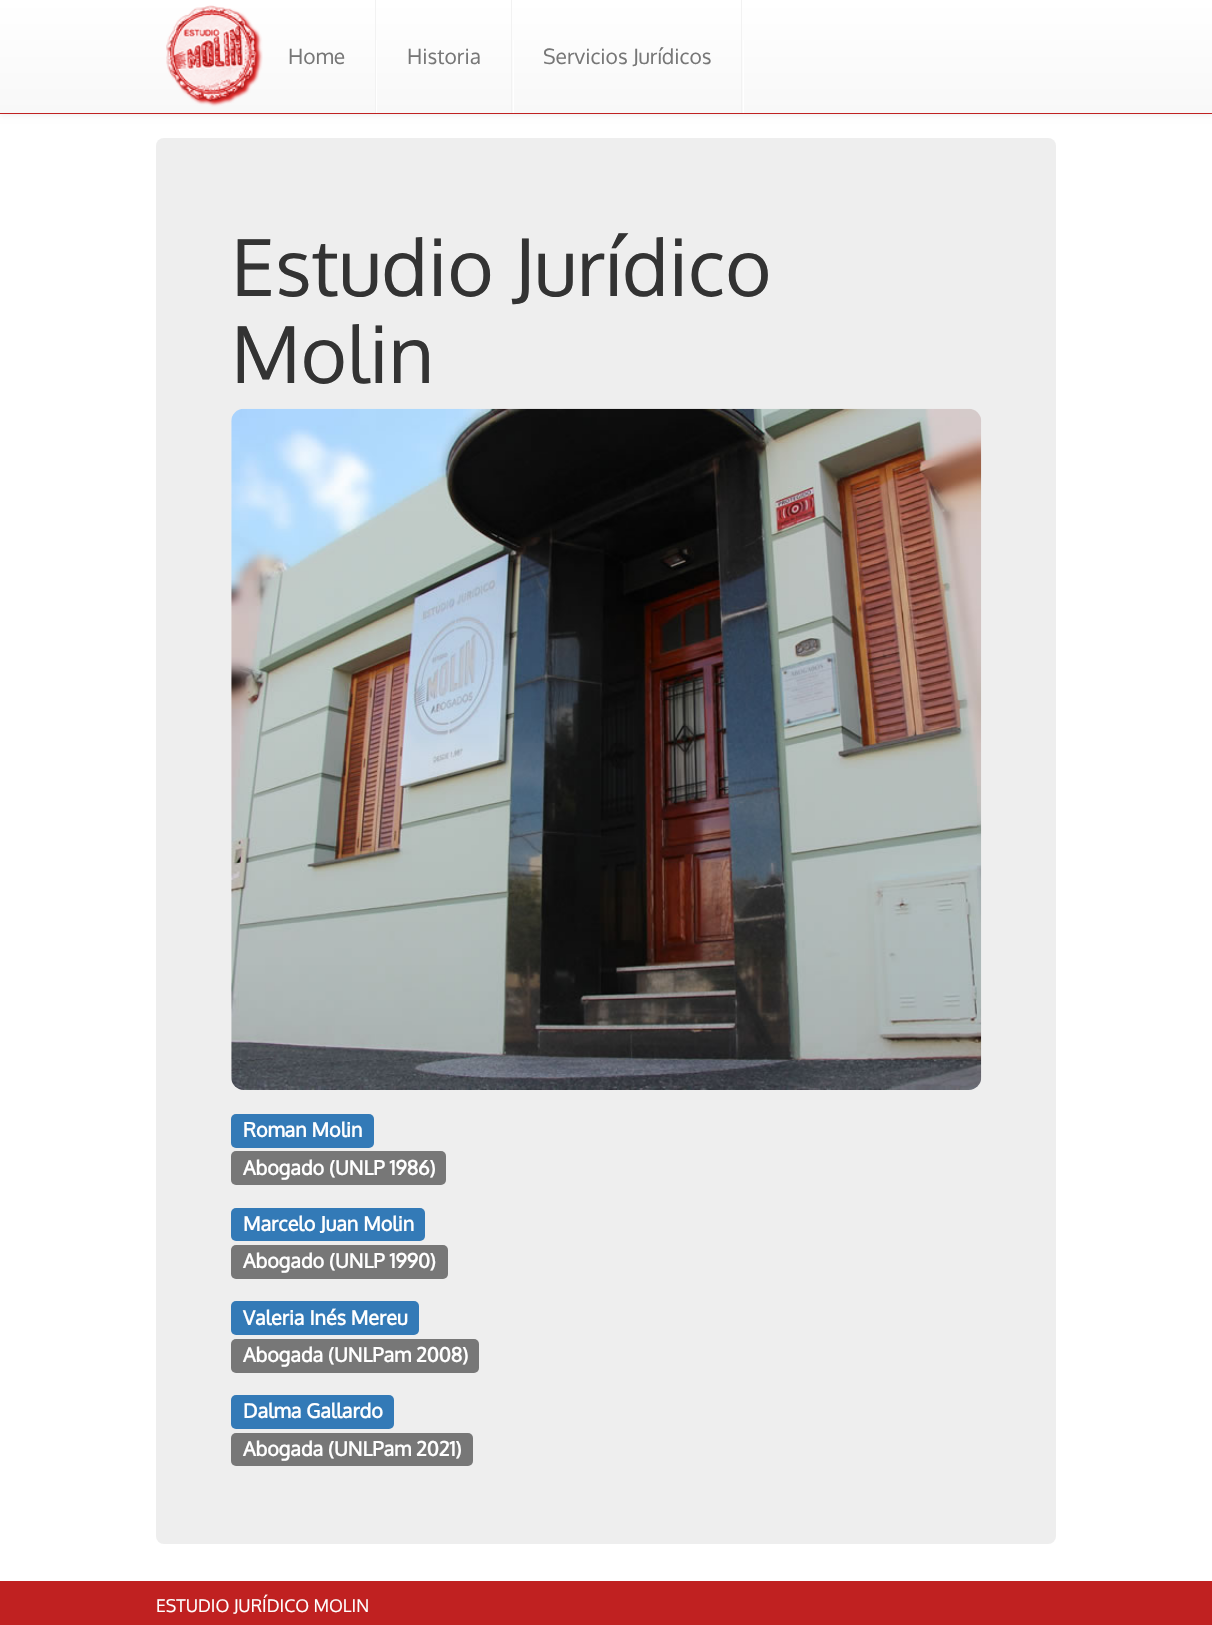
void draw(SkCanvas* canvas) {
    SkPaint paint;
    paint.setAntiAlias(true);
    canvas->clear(0xFFFFFFFF);
    paint.setColor(0x12000000);
    paint.setMaskFilter(SkMaskFilter::MakeBlur(kNormal_SkBlurStyle, 3));
    canvas->drawRect(SkRect::MakeXYWH(0, 1, 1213, 114), paint);
    paint.setMaskFilter(nullptr);
    {
        const SkColor colors[] = {0xFFFFFFFF, 0xFFF8F8F8};
        const float stops[] = {0, 1};
        const SkPoint ends[] = {{606, 0}, {606, 113}};
        paint.setShader(SkGradientShader::MakeLinear(ends, colors, stops, 2, SkTileMode::kClamp));
        paint.setAlpha(255);
    }
    canvas->drawRect(SkRect::MakeXYWH(0, 0, 1212, 113), paint);
    paint.setShader(nullptr);
    paint.setColor(0xFFC02121);
    canvas->drawRect(SkRect::MakeXYWH(0, 113, 1212, 1), paint);
    canvas->drawImageRect(SkImages::DeferredFromEncodedData(SkData::MakeFromFileName("img1.png")), SkRect::MakeXYWH(166, 5, 97, 102), SkSamplingOptions());
    SkFont font1(fontMgr->matchFamilyStyle("Oxygen", SkFontStyle::Normal()), 21);
    font1.setSubpixel(true);
    paint.setColor(0xFF777777);
    canvas->drawString("Home", 288, 64, font1, paint);
    paint.setColor(0xFFFFFFFF);
    canvas->drawRect(SkRect::MakeXYWH(376, 40, 1, 73), paint);
    paint.setColor(0xFFF2F2F2);
    canvas->drawRect(SkRect::MakeXYWH(375, 0, 1, 113), paint);
    paint.setColor(0xFF777777);
    canvas->drawString("Historia", 407, 64, font1, paint);
    paint.setColor(0xFFFFFFFF);
    canvas->drawRect(SkRect::MakeXYWH(513, 40, 1, 73), paint);
    paint.setColor(0xFFF2F2F2);
    canvas->drawRect(SkRect::MakeXYWH(511, 0, 1, 113), paint);
    paint.setColor(0xFF777777);
    canvas->drawString("Servicios Jurídicos", 543, 64, font1, paint);
    paint.setColor(0xFFFFFFFF);
    canvas->drawRect(SkRect::MakeXYWH(743, 40, 1, 73), paint);
    paint.setColor(0xFFF2F2F2);
    canvas->drawRect(SkRect::MakeXYWH(741, 0, 1, 113), paint);
    paint.setColor(0xFFEEEEEE);
    canvas->drawRoundRect(SkRect::MakeXYWH(156, 138, 900, 1406), 8, 8, paint);
    SkFont font2(fontMgr->matchFamilyStyle("Oxygen", SkFontStyle::Normal()), 78.75f);
    font2.setSubpixel(true);
    paint.setColor(0xFF333333);
    canvas->drawString("Estudio Jurídico", 231, 296, font2, paint);
    canvas->drawString("Molin", 231, 383, font2, paint);
    canvas->drawImageRect(SkImages::DeferredFromEncodedData(SkData::MakeFromFileName("img2.png")), SkRect::MakeXYWH(231, 408, 751, 682), SkSamplingOptions());
    paint.setColor(0xFF337AB7);
    canvas->drawRoundRect(SkRect::MakeXYWH(231, 1114, 143, 34), 5, 5, paint);
    SkFont font3(fontMgr->matchFamilyStyle("Oxygen", SkFontStyle::Bold()), 19.75f);
    font3.setSubpixel(true);
    paint.setColor(0xFFFFFFFF);
    canvas->drawString("Roman Molin", 243, 1137, font3, paint);
    paint.setColor(0xFF777777);
    canvas->drawRoundRect(SkRect::MakeXYWH(231, 1151, 215, 34), 5, 5, paint);
    paint.setColor(0xFFFFFFFF);
    canvas->drawString("Abogado (UNLP 1986)", 243, 1175, font3, paint);
    paint.setColor(0xFF337AB7);
    canvas->drawRoundRect(SkRect::MakeXYWH(231, 1208, 194, 33), 5, 5, paint);
    paint.setColor(0xFFFFFFFF);
    canvas->drawString("Marcelo Juan Molin", 243, 1231, font3, paint);
    paint.setColor(0xFF777777);
    canvas->drawRoundRect(SkRect::MakeXYWH(231, 1245, 217, 34), 5, 5, paint);
    paint.setColor(0xFFFFFFFF);
    canvas->drawString("Abogado (UNLP 1990)", 243, 1268, font3, paint);
    paint.setColor(0xFF337AB7);
    canvas->drawRoundRect(SkRect::MakeXYWH(231, 1301, 188, 34), 5, 5, paint);
    paint.setColor(0xFFFFFFFF);
    canvas->drawString("Valeria Inés Mereu", 243, 1325, font3, paint);
    paint.setColor(0xFF777777);
    canvas->drawRoundRect(SkRect::MakeXYWH(231, 1339, 248, 34), 5, 5, paint);
    paint.setColor(0xFFFFFFFF);
    canvas->drawString("Abogada (UNLPam 2008)", 243, 1362, font3, paint);
    paint.setColor(0xFF337AB7);
    canvas->drawRoundRect(SkRect::MakeXYWH(231, 1395, 163, 34), 5, 5, paint);
    paint.setColor(0xFFFFFFFF);
    canvas->drawString("Dalma Gallardo", 243, 1418, font3, paint);
    paint.setColor(0xFF777777);
    canvas->drawRoundRect(SkRect::MakeXYWH(231, 1433, 242, 33), 5, 5, paint);
    paint.setColor(0xFFFFFFFF);
    canvas->drawString("Abogada (UNLPam 2021)", 243, 1456, font3, paint);
    paint.setColor(0xFFC02121);
    canvas->drawRect(SkRect::MakeXYWH(0, 1581, 1212, 44), paint);
    SkFont font4(fontMgr->matchFamilyStyle("Oxygen", SkFontStyle::Normal()), 17.5f);
    font4.setSubpixel(true);
    paint.setColor(0xFFFFFFFF);
    canvas->drawString("ESTUDIO JURÍDICO MOLIN", 156, 1612, font4, paint);
}
